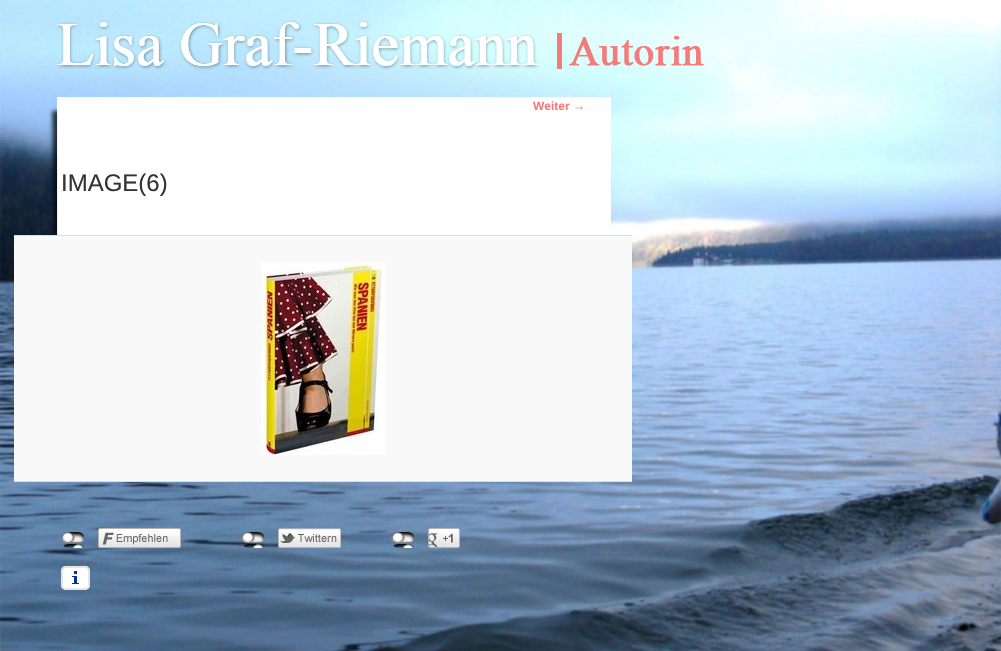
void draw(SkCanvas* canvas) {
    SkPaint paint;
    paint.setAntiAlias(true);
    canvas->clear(0xFFFFFFFF);
    canvas->drawImageRect(SkImages::DeferredFromEncodedData(SkData::MakeFromFileName("img1.png")), SkRect::MakeXYWH(0, 0, 1001, 651), SkSamplingOptions());
    canvas->drawImageRect(SkImages::DeferredFromEncodedData(SkData::MakeFromFileName("img2.png")), SkRect::MakeXYWH(57, 20, 647, 50), SkSamplingOptions());
    canvas->drawImageRect(SkImages::DeferredFromEncodedData(SkData::MakeFromFileName("img3.png")), SkRect::MakeXYWH(48, 97, 563, 138), SkSamplingOptions());
    SkFont font1(fontMgr->matchFamilyStyle("Liberation Sans", SkFontStyle::Bold()), 12);
    font1.setSubpixel(true);
    paint.setColor(0xFFF57A7A);
    canvas->drawString("Weiter →", 533, 110, font1, paint);
    SkFont font2(fontMgr->matchFamilyStyle("Liberation Sans", SkFontStyle::Normal()), 24);
    font2.setSubpixel(true);
    paint.setColor(0xFF333333);
    canvas->drawString("IMAGE(6)", 61, 191, font2, paint);
    paint.setColor(0xFFF9F9F9);
    canvas->drawRect(SkRect::MakeXYWH(14, 236, 618, 245), paint);
    paint.setColor(0xFFDDDDDD);
    canvas->drawRect(SkRect::MakeXYWH(14, 235, 618, 1), paint);
    canvas->drawRect(SkRect::MakeXYWH(14, 481, 618, 1), paint);
    canvas->drawImageRect(SkImages::DeferredFromEncodedData(SkData::MakeFromFileName("img4.png")), SkRect::MakeXYWH(261, 262, 124, 193), SkSamplingOptions());
    canvas->drawImageRect(SkImages::DeferredFromEncodedData(SkData::MakeFromFileName("img5.png")), SkRect::MakeXYWH(61, 532, 24, 16), SkSamplingOptions());
    canvas->drawImageRect(SkImages::DeferredFromEncodedData(SkData::MakeFromFileName("img6.png")), SkRect::MakeXYWH(98, 528, 83, 20), SkSamplingOptions());
    canvas->drawImageRect(SkImages::DeferredFromEncodedData(SkData::MakeFromFileName("img7.png")), SkRect::MakeXYWH(241, 532, 24, 16), SkSamplingOptions());
    canvas->drawImageRect(SkImages::DeferredFromEncodedData(SkData::MakeFromFileName("img8.png")), SkRect::MakeXYWH(278, 528, 63, 20), SkSamplingOptions());
    canvas->drawImageRect(SkImages::DeferredFromEncodedData(SkData::MakeFromFileName("img9.png")), SkRect::MakeXYWH(391, 532, 24, 16), SkSamplingOptions());
    canvas->drawImageRect(SkImages::DeferredFromEncodedData(SkData::MakeFromFileName("img10.png")), SkRect::MakeXYWH(428, 528, 32, 20), SkSamplingOptions());
    paint.setColor(0xFFFFFFFF);
    canvas->drawRoundRect(SkRect::MakeXYWH(61, 566, 29, 24), 5, 5, paint);
    canvas->drawImageRect(SkImages::DeferredFromEncodedData(SkData::MakeFromFileName("img11.png")), SkRect::MakeXYWH(72, 571, 7, 13), SkSamplingOptions());
    paint.setStyle(SkPaint::kStroke_Style);
    paint.setStrokeWidth(2);
    paint.setColor(0xFFE7E3E3);
    canvas->drawRoundRect(SkRect::MakeXYWH(62, 567, 27, 22), 4, 4, paint);
}
